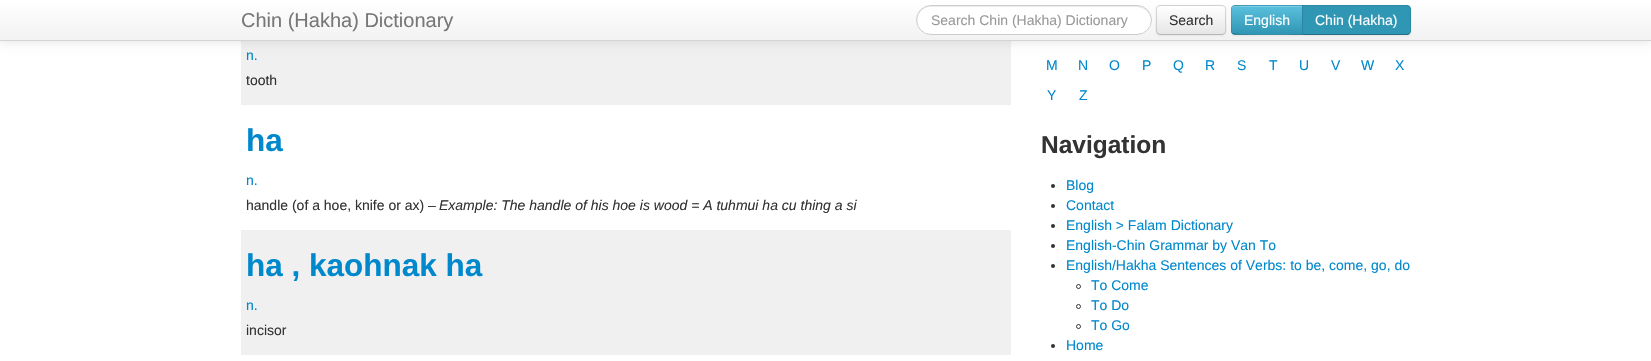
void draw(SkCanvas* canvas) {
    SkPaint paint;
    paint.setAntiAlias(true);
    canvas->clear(0xFFFFFFFF);
    paint.setColor(0xFFF0F0F0);
    canvas->drawRect(SkRect::MakeXYWH(241, 41, 770, 64), paint);
    paint.setColor(0x1A000000);
    paint.setMaskFilter(SkMaskFilter::MakeBlur(kNormal_SkBlurStyle, 5));
    canvas->drawRect(SkRect::MakeXYWH(0, 1, 1651, 41), paint);
    paint.setMaskFilter(nullptr);
    {
        const SkColor colors[] = {0xFFFFFFFF, 0xFFF2F2F2};
        const float stops[] = {0, 1};
        const SkPoint ends[] = {{826, 0}, {826, 40}};
        paint.setShader(SkGradientShader::MakeLinear(ends, colors, stops, 2, SkTileMode::kClamp));
        paint.setAlpha(255);
    }
    canvas->drawRect(SkRect::MakeXYWH(0, 0, 1651, 40), paint);
    paint.setShader(nullptr);
    paint.setColor(0xFFD4D4D4);
    canvas->drawRect(SkRect::MakeXYWH(0, 40, 1651, 1), paint);
    SkFont font1(fontMgr->matchFamilyStyle("Liberation Sans", SkFontStyle::Normal()), 20);
    font1.setSubpixel(true);
    paint.setColor(0xFF777777);
    canvas->drawString("Chin (Hakha) Dictionary", 241, 27, font1, paint);
    paint.setColor(0xFFFFFFFF);
    canvas->drawRoundRect(SkRect::MakeXYWH(916, 5, 236, 30), 15, 15, paint);
    paint.setColor(0xFFECECEC);
    canvas->drawPath(SkPathBuilder().moveTo(931, 7).lineTo(1137, 7).lineTo(1142, 8).cubicTo(1147, 10, 1150, 15, 1151, 20).cubicTo(1151, 12, 1145, 6, 1137, 6).lineTo(931, 6).cubicTo(923, 6, 917, 12, 917, 20).cubicTo(917, 22, 917, 24, 918, 26).cubicTo(916, 17, 920, 7, 931, 7).close().detach(), paint);
    paint.setStyle(SkPaint::kStroke_Style);
    paint.setStrokeWidth(1);
    paint.setColor(0xFFCCCCCC);
    canvas->drawRoundRect(SkRect::MakeXYWH(916.5f, 5.5f, 235, 29), 14.5f, 14.5f, paint);
    SkFont font2(fontMgr->matchFamilyStyle("Liberation Sans", SkFontStyle::Normal()), 14);
    font2.setSubpixel(true);
    paint.setStyle(SkPaint::kFill_Style);
    paint.setColor(0xFF999999);
    canvas->drawString("Search Chin (Hakha) Dictionary", 931, 25, font2, paint);
    paint.setColor(0x0D000000);
    paint.setMaskFilter(SkMaskFilter::MakeBlur(kNormal_SkBlurStyle, 1));
    canvas->drawRoundRect(SkRect::MakeXYWH(1156, 6, 70, 30), 4, 4, paint);
    paint.setMaskFilter(nullptr);
    paint.setColor(0xFFF5F5F5);
    canvas->drawRoundRect(SkRect::MakeXYWH(1156, 5, 70, 30), 4, 4, paint);
    canvas->save();
    canvas->clipPath(SkPathBuilder().moveTo(1160, 5).lineTo(1222, 5).cubicTo(1224, 5, 1226, 7, 1226, 9).lineTo(1226, 31).cubicTo(1226, 33, 1224, 35, 1222, 35).lineTo(1160, 35).cubicTo(1158, 35, 1156, 33, 1156, 31).lineTo(1156, 9).cubicTo(1156, 7, 1158, 5, 1160, 5).close().detach(), true);
    {
        const SkColor colors[] = {0xFFFFFFFF, 0xFFE6E6E6};
        const float stops[] = {0, 1};
        const SkPoint ends[] = {{1191, 6}, {1191, 34}};
        paint.setShader(SkGradientShader::MakeLinear(ends, colors, stops, 2, SkTileMode::kClamp));
        paint.setAlpha(255);
    }
    canvas->drawRect(SkRect::MakeXYWH(1156, 6, 70, 28), paint);
    canvas->restore();
    paint.setStyle(SkPaint::kStroke_Style);
    paint.setShader(nullptr);
    paint.setColor(0x40000000);
    canvas->drawPath(SkPathBuilder().moveTo(1224.5f, 33.5f).lineTo(1222.5f, 34.5f).lineTo(1159.5f, 34.5f).lineTo(1157.5f, 33.5f).detach(), paint);
    paint.setColor(0x26000000);
    canvas->drawPath(SkPathBuilder().moveTo(1157.5f, 33.5f).cubicTo(1155.5f, 31.5f, 1156.5f, 23, 1156.5f, 20).cubicTo(1156.5f, 4, 1154, 5.5f, 1170.5f, 5.5f).lineTo(1211.5f, 5.5f).cubicTo(1228, 5.5f, 1225.5f, 4, 1225.5f, 20).cubicTo(1225.5f, 23, 1226.5f, 31.5f, 1224.5f, 33.5f).detach(), paint);
    paint.setStyle(SkPaint::kFill_Style);
    paint.setColor(0xFF333333);
    canvas->drawString("Search", 1169, 25, font2, paint);
    paint.setColor(0x0D000000);
    paint.setMaskFilter(SkMaskFilter::MakeBlur(kNormal_SkBlurStyle, 1));
    canvas->drawRoundRect(SkRect::MakeXYWH(1231, 6, 72, 30), 4, 4, paint);
    paint.setMaskFilter(nullptr);
    paint.setColor(0xFF49AFCD);
    canvas->drawPath(SkPathBuilder().moveTo(1235, 5).lineTo(1303, 5).lineTo(1303, 35).lineTo(1235, 35).cubicTo(1233, 35, 1231, 33, 1231, 31).lineTo(1231, 9).cubicTo(1231, 7, 1233, 5, 1235, 5).close().detach(), paint);
    canvas->save();
    canvas->clipPath(SkPathBuilder().moveTo(1235, 5).lineTo(1303, 5).lineTo(1303, 35).lineTo(1235, 35).cubicTo(1233, 35, 1231, 33, 1231, 31).lineTo(1231, 9).cubicTo(1231, 7, 1233, 5, 1235, 5).close().detach(), true);
    {
        const SkColor colors[] = {0xFF5BC0DE, 0xFF2F96B4};
        const float stops[] = {0, 1};
        const SkPoint ends[] = {{1267, 6}, {1267, 34}};
        paint.setShader(SkGradientShader::MakeLinear(ends, colors, stops, 2, SkTileMode::kClamp));
        paint.setAlpha(255);
    }
    canvas->drawRect(SkRect::MakeXYWH(1231, 6, 71, 28), paint);
    canvas->restore();
    paint.setShader(nullptr);
    paint.setColor(0xFF7BCCE4);
    canvas->drawPath(SkPathBuilder().moveTo(1235, 7).lineTo(1302, 7).lineTo(1302, 6).lineTo(1235, 6).cubicTo(1233, 6, 1232, 7, 1232, 9).lineTo(1232, 10).cubicTo(1232, 8, 1233, 7, 1235, 7).close().detach(), paint);
    paint.setColor(0x1A000000);
    canvas->drawPath(SkPathBuilder().moveTo(1235, 5).lineTo(1232, 6).lineTo(1233, 7).cubicTo(1234, 5, 1294, 6, 1302, 6).lineTo(1303, 5).close().detach(), paint);
    paint.setColor(0x40000000);
    canvas->drawPath(SkPathBuilder().moveTo(1303, 35).lineTo(1302, 34).cubicTo(1294, 34, 1234, 35, 1233, 33).lineTo(1232, 34).lineTo(1235, 35).close().detach(), paint);
    paint.setColor(0x1A000000);
    canvas->drawPath(SkPathBuilder().moveTo(1231, 9).lineTo(1231, 31).cubicTo(1231, 32, 1231.5f, 33, 1232, 34).lineTo(1233, 33).cubicTo(1232, 33, 1232, 32, 1232, 31).lineTo(1232, 9).cubicTo(1232, 8, 1232, 7, 1233, 7).lineTo(1232, 6).cubicTo(1231.5f, 7, 1231, 8, 1231, 9).close().detach(), paint);
    paint.setColor(0xFFFFFFFF);
    canvas->drawString("English", 1244, 25, font2, paint);
    paint.setColor(0x0D000000);
    paint.setMaskFilter(SkMaskFilter::MakeBlur(kNormal_SkBlurStyle, 1));
    canvas->drawRoundRect(SkRect::MakeXYWH(1302, 6, 109, 30), 4, 4, paint);
    paint.setMaskFilter(nullptr);
    paint.setColor(0xFF2F96B4);
    canvas->drawPath(SkPathBuilder().moveTo(1302, 5).lineTo(1407, 5).cubicTo(1409, 5, 1411, 7, 1411, 9).lineTo(1411, 31).cubicTo(1411, 33, 1409, 35, 1407, 35).lineTo(1302, 35).close().detach(), paint);
    paint.setColor(0x1A000000);
    canvas->drawPath(SkPathBuilder().moveTo(1302, 5).lineTo(1303, 6).lineTo(1407, 6).lineTo(1409, 7).lineTo(1410, 6).lineTo(1407, 5).close().detach(), paint);
    canvas->drawPath(SkPathBuilder().moveTo(1411, 31).lineTo(1411, 9).cubicTo(1411, 8, 1410.5f, 7, 1410, 6).lineTo(1409, 7).cubicTo(1410, 7, 1410, 8, 1410, 9).lineTo(1410, 31).cubicTo(1410, 32, 1410, 33, 1409, 33).lineTo(1410, 34).cubicTo(1410.5f, 33, 1411, 32, 1411, 31).close().detach(), paint);
    paint.setColor(0x40000000);
    canvas->drawPath(SkPathBuilder().moveTo(1407, 35).lineTo(1410, 34).lineTo(1409, 33).lineTo(1407, 34).lineTo(1303, 34).lineTo(1302, 35).close().detach(), paint);
    paint.setColor(0x1A000000);
    canvas->drawPath(SkPathBuilder().moveTo(1302, 5).lineTo(1302, 35).lineTo(1303, 34).lineTo(1303, 6).close().detach(), paint);
    paint.setColor(0xFFFFFFFF);
    canvas->drawString("Chin (Hakha)", 1315, 25, font2, paint);
    paint.setColor(0xFF0088CC);
    canvas->drawString("n.", 246, 60, font2, paint);
    paint.setColor(0xFF333333);
    canvas->drawString("tooth", 246, 85, font2, paint);
    SkFont font3(fontMgr->matchFamilyStyle("Liberation Sans", SkFontStyle::Bold()), 31.5f);
    font3.setSubpixel(true);
    paint.setColor(0xFF0088CC);
    canvas->drawString("ha", 246, 151, font3, paint);
    canvas->drawString("n.", 246, 185, font2, paint);
    paint.setColor(0xFF333333);
    canvas->drawString("handle (of a hoe, knife or ax) –", 246, 210, font2, paint);
    SkFont font4(fontMgr->matchFamilyStyle("Liberation Sans", SkFontStyle::Italic()), 14);
    font4.setSubpixel(true);
    canvas->drawString("Example: The handle of his hoe is wood = A tuhmui ha cu thing a si", 439, 210, font4, paint);
    paint.setColor(0xFFF0F0F0);
    canvas->drawRect(SkRect::MakeXYWH(241, 230, 770, 125), paint);
    paint.setColor(0xFF0088CC);
    canvas->drawString("ha , kaohnak ha", 246, 276, font3, paint);
    canvas->drawString("n.", 246, 310, font2, paint);
    paint.setColor(0xFF333333);
    canvas->drawString("incisor", 246, 335, font2, paint);
    paint.setColor(0xFF0088CC);
    canvas->drawString("M", 1046, 70, font2, paint);
    canvas->drawString("N", 1078, 70, font2, paint);
    canvas->drawString("O", 1109, 70, font2, paint);
    canvas->drawString("P", 1142, 70, font2, paint);
    canvas->drawString("Q", 1173, 70, font2, paint);
    canvas->drawString("R", 1205, 70, font2, paint);
    canvas->drawString("S", 1237, 70, font2, paint);
    canvas->drawString("T", 1269, 70, font2, paint);
    canvas->drawString("U", 1299, 70, font2, paint);
    canvas->drawString("V", 1331, 70, font2, paint);
    canvas->drawString("W", 1361, 70, font2, paint);
    canvas->drawString("X", 1395, 70, font2, paint);
    canvas->drawString("Y", 1047, 100, font2, paint);
    canvas->drawString("Z", 1079, 100, font2, paint);
    SkFont font5(fontMgr->matchFamilyStyle("Liberation Sans", SkFontStyle::Bold()), 24.5f);
    font5.setSubpixel(true);
    paint.setColor(0xFF333333);
    canvas->drawString("Navigation", 1041, 153, font5, paint);
    canvas->drawCircle(1053, 186, 2, paint);
    paint.setColor(0xFF0088CC);
    canvas->drawString("Blog", 1066, 190, font2, paint);
    paint.setColor(0xFF333333);
    canvas->drawCircle(1053, 206, 2, paint);
    paint.setColor(0xFF0088CC);
    canvas->drawString("Contact", 1066, 210, font2, paint);
    paint.setColor(0xFF333333);
    canvas->drawCircle(1053, 226, 2, paint);
    paint.setColor(0xFF0088CC);
    canvas->drawString("English > Falam Dictionary", 1066, 230, font2, paint);
    paint.setColor(0xFF333333);
    canvas->drawCircle(1053, 246, 2, paint);
    paint.setColor(0xFF0088CC);
    canvas->drawString("English-Chin Grammar by Van To", 1066, 250, font2, paint);
    paint.setColor(0xFF333333);
    canvas->drawCircle(1053, 266, 2, paint);
    paint.setColor(0xFF0088CC);
    canvas->drawString("English/Hakha Sentences of Verbs: to be, come, go, do", 1066, 270, font2, paint);
    paint.setStyle(SkPaint::kStroke_Style);
    paint.setColor(0xFF333333);
    canvas->drawCircle(1078.5f, 286.5f, 2, paint);
    paint.setStyle(SkPaint::kFill_Style);
    paint.setColor(0xFF0088CC);
    canvas->drawString("To Come", 1091, 290, font2, paint);
    paint.setStyle(SkPaint::kStroke_Style);
    paint.setColor(0xFF333333);
    canvas->drawCircle(1078.5f, 306.5f, 2, paint);
    paint.setStyle(SkPaint::kFill_Style);
    paint.setColor(0xFF0088CC);
    canvas->drawString("To Do", 1091, 310, font2, paint);
    paint.setStyle(SkPaint::kStroke_Style);
    paint.setColor(0xFF333333);
    canvas->drawCircle(1078.5f, 326.5f, 2, paint);
    paint.setStyle(SkPaint::kFill_Style);
    paint.setColor(0xFF0088CC);
    canvas->drawString("To Go", 1091, 330, font2, paint);
    paint.setColor(0xFF333333);
    canvas->drawCircle(1053, 346, 2, paint);
    paint.setColor(0xFF0088CC);
    canvas->drawString("Home", 1066, 350, font2, paint);
}
